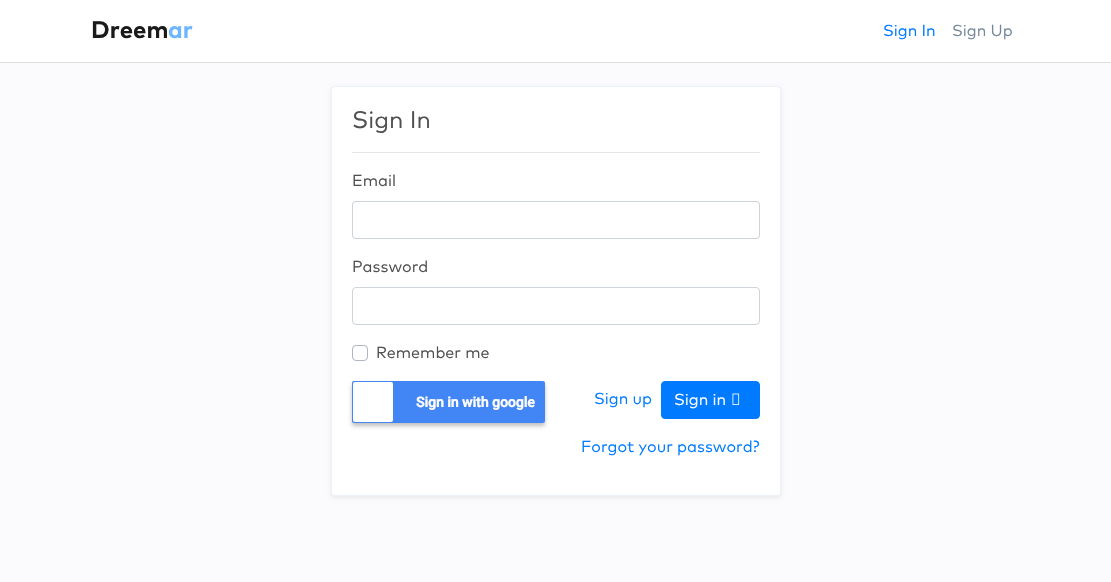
void draw(SkCanvas* canvas) {
    SkPaint paint;
    paint.setAntiAlias(true);
    canvas->clear(0xFFFBFBFD);
    paint.setColor(0xFFFFFFFF);
    canvas->drawRect(SkRect::MakeXYWH(0, 0, 1111, 62), paint);
    paint.setColor(0xFFDDDDDD);
    canvas->drawRect(SkRect::MakeXYWH(0, 62, 1111, 1), paint);
    SkFont font1(fontMgr->matchFamilyStyle("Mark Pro", SkFontStyle::Bold()), 24);
    font1.setSubpixel(true);
    paint.setColor(0xFF1A1A1A);
    canvas->drawString("Dreem", 91, 38, font1, paint);
    paint.setColor(0xFF6EB5FF);
    canvas->drawString("ar", 168, 38, font1, paint);
    SkFont font2(fontMgr->matchFamilyStyle("Mark Pro", SkFontStyle::Normal()), 16);
    font2.setSubpixel(true);
    paint.setColor(0xFF007BFF);
    canvas->drawString("Sign In", 883, 36, font2, paint);
    paint.setColor(0xFF75889B);
    canvas->drawString("Sign Up", 952, 36, font2, paint);
    paint.setColor(0x12000000);
    paint.setMaskFilter(SkMaskFilter::MakeBlur(kNormal_SkBlurStyle, 2));
    canvas->drawRoundRect(SkRect::MakeXYWH(331, 88, 450, 410), 4, 4, paint);
    paint.setMaskFilter(nullptr);
    paint.setColor(0xFFFFFFFF);
    canvas->drawRoundRect(SkRect::MakeXYWH(331.5f, 86.5f, 449, 409), 3.5f, 3.5f, paint);
    paint.setStyle(SkPaint::kStroke_Style);
    paint.setStrokeWidth(1);
    paint.setColor(0xFFEDF2F9);
    canvas->drawRoundRect(SkRect::MakeXYWH(331.5f, 86.5f, 449, 409), 3.5f, 3.5f, paint);
    SkFont font3(fontMgr->matchFamilyStyle("Mark Pro", SkFontStyle::Normal()), 24);
    font3.setSubpixel(true);
    paint.setStyle(SkPaint::kFill_Style);
    paint.setColor(0xFF505050);
    canvas->drawString("Sign In", 352, 128, font3, paint);
    paint.setColor(0xFFE6E6E6);
    canvas->drawRect(SkRect::MakeXYWH(352, 152, 408, 1), paint);
    paint.setColor(0xFF505050);
    canvas->drawString("Email", 352, 186, font2, paint);
    paint.setStyle(SkPaint::kStroke_Style);
    paint.setColor(0xFFCED4DA);
    canvas->drawRoundRect(SkRect::MakeXYWH(352.5f, 201.5f, 407, 37), 3.5f, 3.5f, paint);
    paint.setStyle(SkPaint::kFill_Style);
    paint.setColor(0xFF505050);
    canvas->drawString("Password", 352, 272, font2, paint);
    paint.setStyle(SkPaint::kStroke_Style);
    paint.setColor(0xFFCED4DA);
    canvas->drawRoundRect(SkRect::MakeXYWH(352.5f, 287.5f, 407, 37), 3.5f, 3.5f, paint);
    paint.setColor(0xFFADB5BD);
    canvas->drawRoundRect(SkRect::MakeXYWH(352.5f, 345.5f, 15, 15), 3.5f, 3.5f, paint);
    paint.setStyle(SkPaint::kFill_Style);
    paint.setColor(0xFF505050);
    canvas->drawString("Remember me", 376, 358, font2, paint);
    paint.setColor(0x40000000);
    paint.setMaskFilter(SkMaskFilter::MakeBlur(kNormal_SkBlurStyle, 2));
    canvas->drawRoundRect(SkRect::MakeXYWH(352, 384, 193, 42), 2, 2, paint);
    paint.setMaskFilter(nullptr);
    paint.setColor(0xFF4285F4);
    canvas->drawRoundRect(SkRect::MakeXYWH(352, 381, 193, 42), 2, 2, paint);
    paint.setColor(0xFFFFFFFF);
    canvas->drawRoundRect(SkRect::MakeXYWH(353, 382, 40, 40), 2, 2, paint);
    SkFont font4(fontMgr->matchFamilyStyle("Roboto", SkFontStyle::Bold()), 14);
    font4.setSubpixel(true);
    canvas->drawString("Sign in with google", 416, 407, font4, paint);
    paint.setColor(0xFF007BFF);
    canvas->drawString("Sign up", 594, 404, font2, paint);
    canvas->drawRoundRect(SkRect::MakeXYWH(661.5f, 381.5f, 98, 37), 3.5f, 3.5f, paint);
    paint.setStyle(SkPaint::kStroke_Style);
    canvas->drawRoundRect(SkRect::MakeXYWH(661.5f, 381.5f, 98, 37), 3.5f, 3.5f, paint);
    paint.setStyle(SkPaint::kFill_Style);
    paint.setColor(0xFFFFFFFF);
    canvas->drawString("Sign in", 674, 405, font2, paint);
    canvas->drawImageRect(SkImages::DeferredFromEncodedData(SkData::MakeFromFileName("img1.png")), SkRect::MakeXYWH(732, 393, 8, 12), SkSamplingOptions());
    paint.setColor(0xFF007BFF);
    canvas->drawString("Forgot your password?", 581, 452, font2, paint);
}
